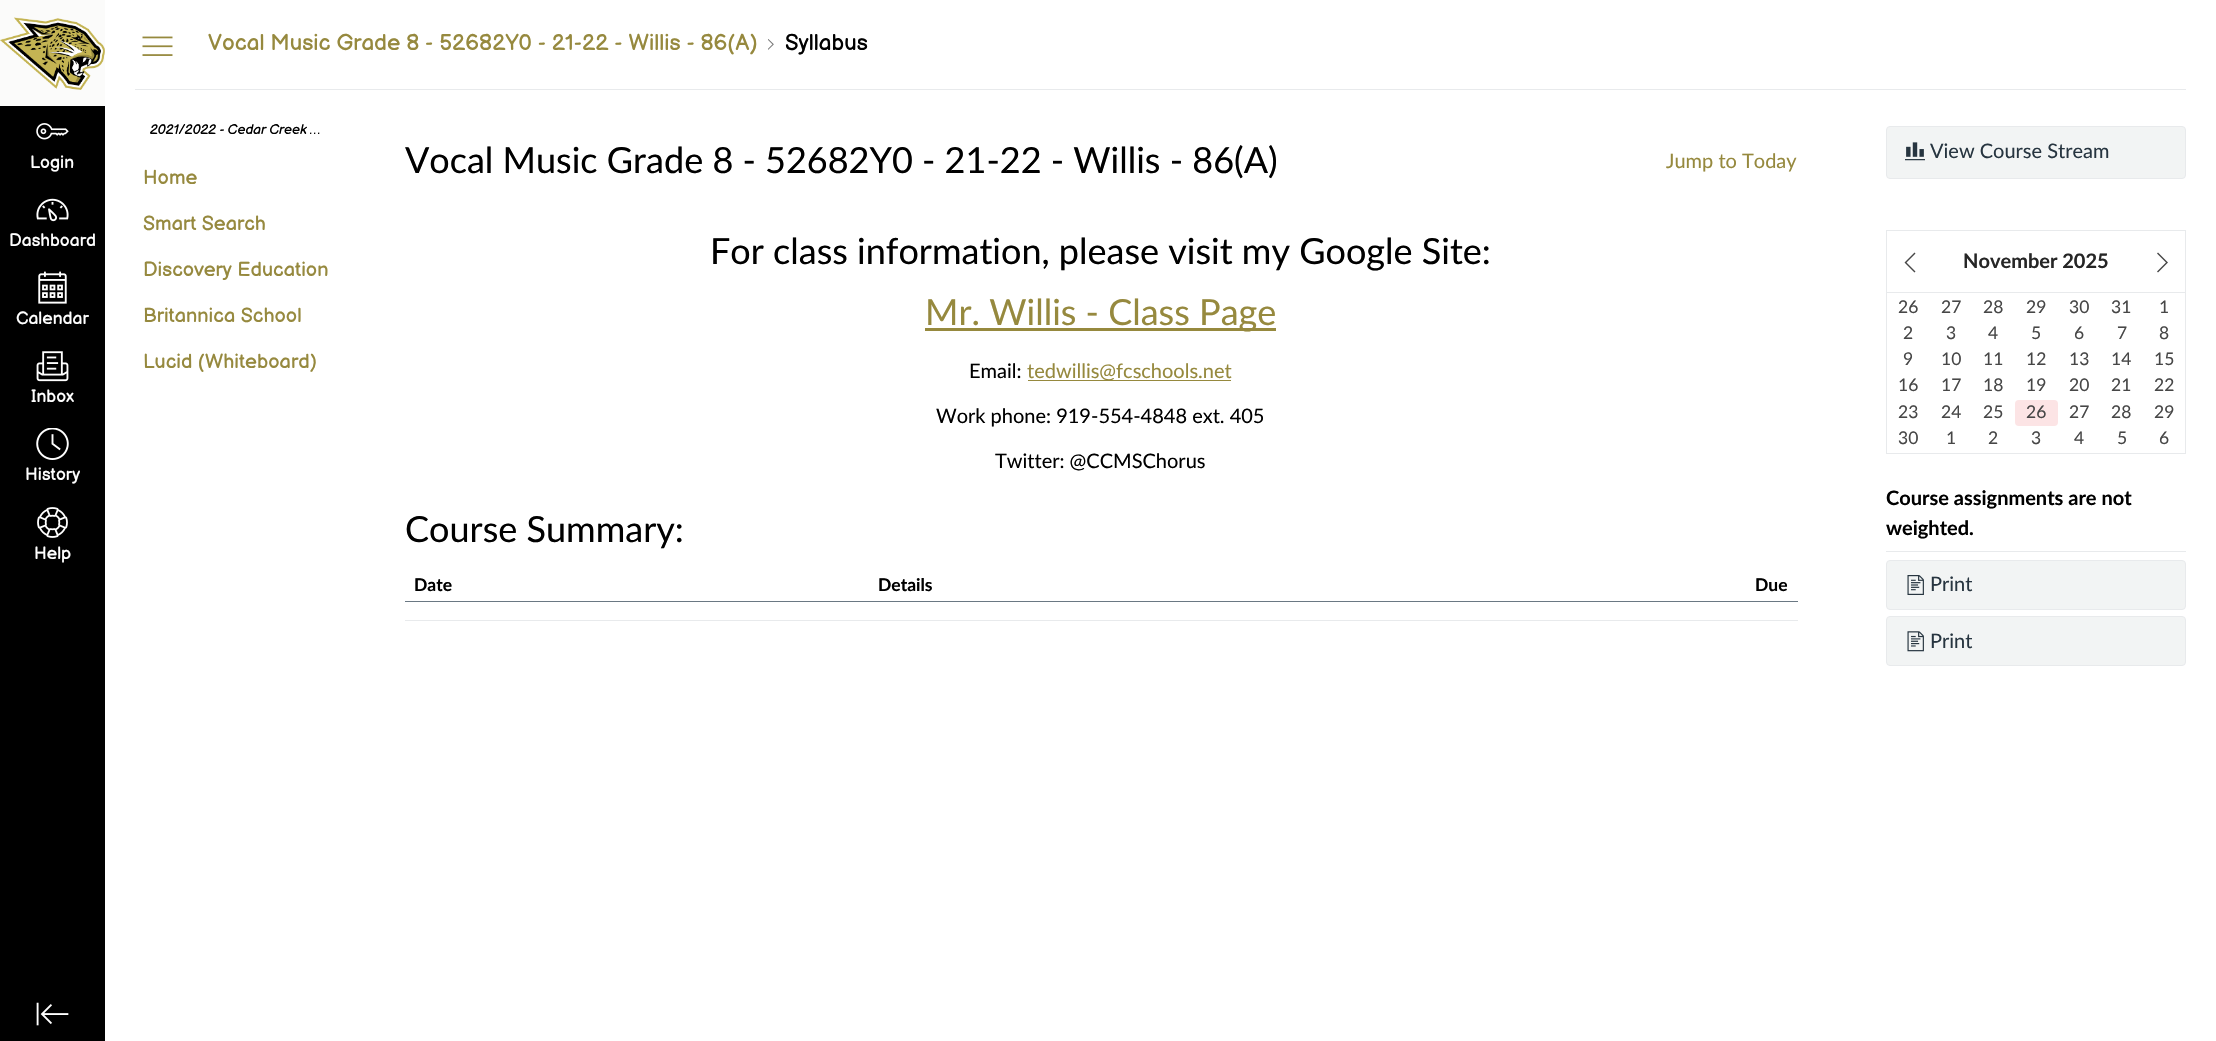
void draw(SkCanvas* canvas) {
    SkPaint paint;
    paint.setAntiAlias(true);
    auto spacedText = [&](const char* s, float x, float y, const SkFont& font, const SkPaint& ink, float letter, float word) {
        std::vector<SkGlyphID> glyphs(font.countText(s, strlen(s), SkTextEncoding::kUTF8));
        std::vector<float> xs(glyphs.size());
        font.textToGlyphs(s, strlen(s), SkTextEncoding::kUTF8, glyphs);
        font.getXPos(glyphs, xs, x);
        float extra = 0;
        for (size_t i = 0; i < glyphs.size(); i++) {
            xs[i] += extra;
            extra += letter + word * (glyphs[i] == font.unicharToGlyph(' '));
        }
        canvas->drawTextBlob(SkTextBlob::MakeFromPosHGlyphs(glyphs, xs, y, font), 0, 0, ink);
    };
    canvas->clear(0xFFFFFFFF);
    paint.setColor(0xFF000000);
    canvas->drawRect(SkRect::MakeXYWH(0, 106, 105, 935), paint);
    paint.setColor(0xFFFBFBFA);
    canvas->drawRect(SkRect::MakeXYWH(0, 0, 105, 106), paint);
    canvas->drawImageRect(SkImages::DeferredFromEncodedData(SkData::MakeFromFileName("img1.png")), SkRect::MakeXYWH(0, 17, 105, 73), SkSamplingOptions());
    canvas->drawImageRect(SkImages::DeferredFromEncodedData(SkData::MakeFromFileName("img2.png")), SkRect::MakeXYWH(36, 123, 33, 17), SkSamplingOptions());
    SkFont font1(fontMgr->matchFamilyStyle("Balsamiq Sans", SkFontStyle::Normal()), 17.5f);
    font1.setSubpixel(true);
    paint.setColor(0xFFFFFFFF);
    canvas->drawString("Login", 30, 168, font1, paint);
    canvas->drawImageRect(SkImages::DeferredFromEncodedData(SkData::MakeFromFileName("img3.png")), SkRect::MakeXYWH(36, 198, 33, 24), SkSamplingOptions());
    canvas->drawString("Dashboard", 9, 246, font1, paint);
    canvas->drawImageRect(SkImages::DeferredFromEncodedData(SkData::MakeFromFileName("img4.png")), SkRect::MakeXYWH(38, 271, 29, 33), SkSamplingOptions());
    canvas->drawString("Calendar", 16, 324, font1, paint);
    canvas->drawImageRect(SkImages::DeferredFromEncodedData(SkData::MakeFromFileName("img5.png")), SkRect::MakeXYWH(36, 351, 33, 31), SkSamplingOptions());
    canvas->drawString("Inbox", 31, 402, font1, paint);
    canvas->drawImageRect(SkImages::DeferredFromEncodedData(SkData::MakeFromFileName("img6.png")), SkRect::MakeXYWH(36, 428, 33, 32), SkSamplingOptions());
    canvas->drawString("History", 25, 480, font1, paint);
    canvas->drawImageRect(SkImages::DeferredFromEncodedData(SkData::MakeFromFileName("img7.png")), SkRect::MakeXYWH(37, 507, 31, 31), SkSamplingOptions());
    canvas->drawString("Help", 34, 559, font1, paint);
    canvas->drawImageRect(SkImages::DeferredFromEncodedData(SkData::MakeFromFileName("img8.png")), SkRect::MakeXYWH(36, 1002, 33, 24), SkSamplingOptions());
    paint.setColor(0xFFE8EAEC);
    canvas->drawRect(SkRect::MakeXYWH(135, 89, 2051, 1), paint);
    canvas->drawImageRect(SkImages::DeferredFromEncodedData(SkData::MakeFromFileName("img9.png")), SkRect::MakeXYWH(142, 36, 31, 20), SkSamplingOptions());
    SkFont font2(fontMgr->matchFamilyStyle("Balsamiq Sans", SkFontStyle::Normal()), 22.5f);
    font2.setSubpixel(true);
    paint.setColor(0xFF96893E);
    spacedText("Vocal Music Grade 8 - 52682Y0 - 21-22 - Willis - 86(A)", 208, 50, font2, paint, 0, -0.25f);
    canvas->drawImageRect(SkImages::DeferredFromEncodedData(SkData::MakeFromFileName("img10.png")), SkRect::MakeXYWH(768, 39, 6, 11), SkSamplingOptions());
    paint.setColor(0xFF000000);
    canvas->drawString("Syllabus", 785, 50, font2, paint);
    SkFont font3(fontMgr->matchFamilyStyle("Balsamiq Sans", SkFontStyle::Italic()), 13.75f);
    font3.setSubpixel(true);
    spacedText("2021/2022 - Cedar Creek …", 150, 134, font3, paint, 0, -0.5f);
    SkFont font4(fontMgr->matchFamilyStyle("Balsamiq Sans", SkFontStyle::Normal()), 20);
    font4.setSubpixel(true);
    paint.setColor(0xFF96893E);
    canvas->drawString("Home", 143, 184, font4, paint);
    canvas->drawString("Smart Search", 143, 230, font4, paint);
    canvas->drawString("Discovery Education", 143, 276, font4, paint);
    canvas->drawString("Britannica School", 143, 322, font4, paint);
    canvas->drawString("Lucid (Whiteboard)", 143, 368, font4, paint);
    SkFont font5(fontMgr->matchFamilyStyle("Lato", SkFontStyle::Normal()), 36);
    font5.setSubpixel(true);
    paint.setColor(0xFF000000);
    canvas->drawString("Vocal Music Grade 8 - 52682Y0 - 21-22 - Willis - 86(A)", 405, 173, font5, paint);
    SkFont font6(fontMgr->matchFamilyStyle("Lato", SkFontStyle::Normal()), 20);
    font6.setSubpixel(true);
    paint.setColor(0xFF96893E);
    canvas->drawString("Jump to Today", 1666, 168, font6, paint);
    paint.setColor(0xFF000000);
    canvas->drawString("For class information, please visit my Google Site:", 710, 264, font5, paint);
    paint.setColor(0xFF96893E);
    canvas->drawRect(SkRect::MakeXYWH(925, 328, 351, 3), paint);
    canvas->drawString("Mr. Willis - Class Page", 925, 325, font5, paint);
    paint.setColor(0xFF000000);
    canvas->drawString("Email:", 969, 378, font6, paint);
    paint.setColor(0xFF96893E);
    canvas->drawRect(SkRect::MakeXYWH(1028, 380, 203, 1), paint);
    canvas->drawString("tedwillis@fcschools.net", 1027, 378, font6, paint);
    paint.setColor(0xFF000000);
    canvas->drawString("Work phone: 919-554-4848 ext. 405", 936, 423, font6, paint);
    canvas->drawString("Twitter: @CCMSChorus", 995, 468, font6, paint);
    canvas->drawString("Course Summary:", 405, 542, font5, paint);
    SkFont font7(fontMgr->matchFamilyStyle("Lato", SkFontStyle::Bold()), 17.5f);
    font7.setSubpixel(true);
    canvas->drawString("Date", 414, 591, font7, paint);
    canvas->drawString("Details", 878, 591, font7, paint);
    paint.setColor(0xFF6A7883);
    canvas->drawRect(SkRect::MakeXYWH(405, 601, 1393, 1), paint);
    paint.setColor(0xFF000000);
    canvas->drawString("Due", 1755, 591, font7, paint);
    paint.setColor(0xFFE8EAEC);
    canvas->drawRect(SkRect::MakeXYWH(405, 620, 1393, 1), paint);
    paint.setColor(0xFFF2F4F4);
    canvas->drawRoundRect(SkRect::MakeXYWH(1886.5f, 126.5f, 299, 52), 3.5f, 3.5f, paint);
    paint.setStyle(SkPaint::kStroke_Style);
    paint.setStrokeWidth(1);
    paint.setColor(0xFFE8EAEC);
    canvas->drawRoundRect(SkRect::MakeXYWH(1886.5f, 126.5f, 299, 52), 3.5f, 3.5f, paint);
    canvas->drawImageRect(SkImages::DeferredFromEncodedData(SkData::MakeFromFileName("img11.png")), SkRect::MakeXYWH(1905, 142, 20, 19), SkSamplingOptions());
    paint.setStyle(SkPaint::kFill_Style);
    paint.setColor(0xFF273540);
    canvas->drawString("View Course Stream", 1930, 158, font6, paint);
    paint.setStyle(SkPaint::kStroke_Style);
    paint.setColor(0xFFE8EAEC);
    canvas->drawRect(SkRect::MakeXYWH(1886.5f, 230.5f, 299, 62), paint);
    paint.setStyle(SkPaint::kFill_Style);
    paint.setColor(0xFF474747);
    canvas->drawPath(SkPathBuilder().moveTo(1914.5f, 252.5f).lineTo(1915.5f, 253.5f).lineTo(1906.5f, 262.5f).lineTo(1915.5f, 271.5f).lineTo(1914.5f, 272.5f).lineTo(1904.5f, 262.5f).close().detach(), paint);
    SkFont font8(fontMgr->matchFamilyStyle("Lato", SkFontStyle::Bold()), 20);
    font8.setSubpixel(true);
    paint.setColor(0xFF262626);
    canvas->drawString("November 2025", 1963, 268, font8, paint);
    paint.setColor(0xFF474747);
    canvas->drawPath(SkPathBuilder().moveTo(2158, 252.5f).lineTo(2157, 253.5f).lineTo(2166, 262.5f).lineTo(2157, 271.5f).lineTo(2158, 272.5f).lineTo(2168, 262.5f).close().detach(), paint);
    paint.setColor(0xFFE8EAEC);
    canvas->drawRect(SkRect::MakeXYWH(2185, 293, 1, 161), paint);
    canvas->drawRect(SkRect::MakeXYWH(1886, 453, 300, 1), paint);
    canvas->drawRect(SkRect::MakeXYWH(1886, 293, 1, 161), paint);
    SkFont font9(fontMgr->matchFamilyStyle("Lato", SkFontStyle::Normal()), 17.5f);
    font9.setSubpixel(true);
    paint.setColor(0xFF474747);
    canvas->drawString("26", 1898, 313, font9, paint);
    canvas->drawString("27", 1941, 313, font9, paint);
    canvas->drawString("28", 1983, 313, font9, paint);
    canvas->drawString("29", 2026, 313, font9, paint);
    canvas->drawString("30", 2069, 313, font9, paint);
    canvas->drawString("31", 2111, 313, font9, paint);
    canvas->drawString("1", 2159, 313, font9, paint);
    canvas->drawString("2", 1903, 339, font9, paint);
    canvas->drawString("3", 1946, 339, font9, paint);
    canvas->drawString("4", 1988, 339, font9, paint);
    canvas->drawString("5", 2031, 339, font9, paint);
    canvas->drawString("6", 2074, 339, font9, paint);
    canvas->drawString("7", 2117, 339, font9, paint);
    canvas->drawString("8", 2159, 339, font9, paint);
    canvas->drawString("9", 1903, 365, font9, paint);
    canvas->drawString("10", 1941, 365, font9, paint);
    canvas->drawString("11", 1983, 365, font9, paint);
    canvas->drawString("12", 2026, 365, font9, paint);
    canvas->drawString("13", 2069, 365, font9, paint);
    canvas->drawString("14", 2111, 365, font9, paint);
    canvas->drawString("15", 2154, 365, font9, paint);
    canvas->drawString("16", 1898, 391, font9, paint);
    canvas->drawString("17", 1941, 391, font9, paint);
    canvas->drawString("18", 1983, 391, font9, paint);
    canvas->drawString("19", 2026, 391, font9, paint);
    canvas->drawString("20", 2069, 391, font9, paint);
    canvas->drawString("21", 2111, 391, font9, paint);
    canvas->drawString("22", 2154, 391, font9, paint);
    canvas->drawString("23", 1898, 418, font9, paint);
    canvas->drawString("24", 1941, 418, font9, paint);
    canvas->drawString("25", 1983, 418, font9, paint);
    paint.setColor(0xFFFCE4E5);
    canvas->drawRoundRect(SkRect::MakeXYWH(2015, 400, 43, 26), 4, 4, paint);
    paint.setColor(0xFF474747);
    canvas->drawString("26", 2026, 418, font9, paint);
    canvas->drawString("27", 2069, 418, font9, paint);
    canvas->drawString("28", 2111, 418, font9, paint);
    canvas->drawString("29", 2154, 418, font9, paint);
    canvas->drawString("30", 1898, 444, font9, paint);
    canvas->drawString("1", 1946, 444, font9, paint);
    canvas->drawString("2", 1988, 444, font9, paint);
    canvas->drawString("3", 2031, 444, font9, paint);
    canvas->drawString("4", 2074, 444, font9, paint);
    canvas->drawString("5", 2117, 444, font9, paint);
    canvas->drawString("6", 2159, 444, font9, paint);
    paint.setColor(0xFFE8EAEC);
    canvas->drawRect(SkRect::MakeXYWH(1886, 551, 300, 1), paint);
    paint.setColor(0xFF000000);
    canvas->drawString("Course assignments are not", 1886, 505, font8, paint);
    canvas->drawString("weighted.", 1886, 535, font8, paint);
    paint.setColor(0xFFF2F4F4);
    canvas->drawRoundRect(SkRect::MakeXYWH(1886.5f, 560.5f, 299, 49), 3.5f, 3.5f, paint);
    paint.setStyle(SkPaint::kStroke_Style);
    paint.setColor(0xFFE8EAEC);
    canvas->drawRoundRect(SkRect::MakeXYWH(1886.5f, 560.5f, 299, 49), 3.5f, 3.5f, paint);
    canvas->drawImageRect(SkImages::DeferredFromEncodedData(SkData::MakeFromFileName("img12.png")), SkRect::MakeXYWH(1907, 575, 17, 20), SkSamplingOptions());
    paint.setStyle(SkPaint::kFill_Style);
    paint.setColor(0xFF273540);
    canvas->drawString("Print", 1930, 591, font6, paint);
    paint.setColor(0xFFF2F4F4);
    canvas->drawRoundRect(SkRect::MakeXYWH(1886.5f, 616.5f, 299, 49), 3.5f, 3.5f, paint);
    paint.setStyle(SkPaint::kStroke_Style);
    paint.setColor(0xFFE8EAEC);
    canvas->drawRoundRect(SkRect::MakeXYWH(1886.5f, 616.5f, 299, 49), 3.5f, 3.5f, paint);
    canvas->drawImageRect(SkImages::DeferredFromEncodedData(SkData::MakeFromFileName("img13.png")), SkRect::MakeXYWH(1907, 631, 17, 21), SkSamplingOptions());
    paint.setStyle(SkPaint::kFill_Style);
    paint.setColor(0xFF273540);
    canvas->drawString("Print", 1930, 648, font6, paint);
}
